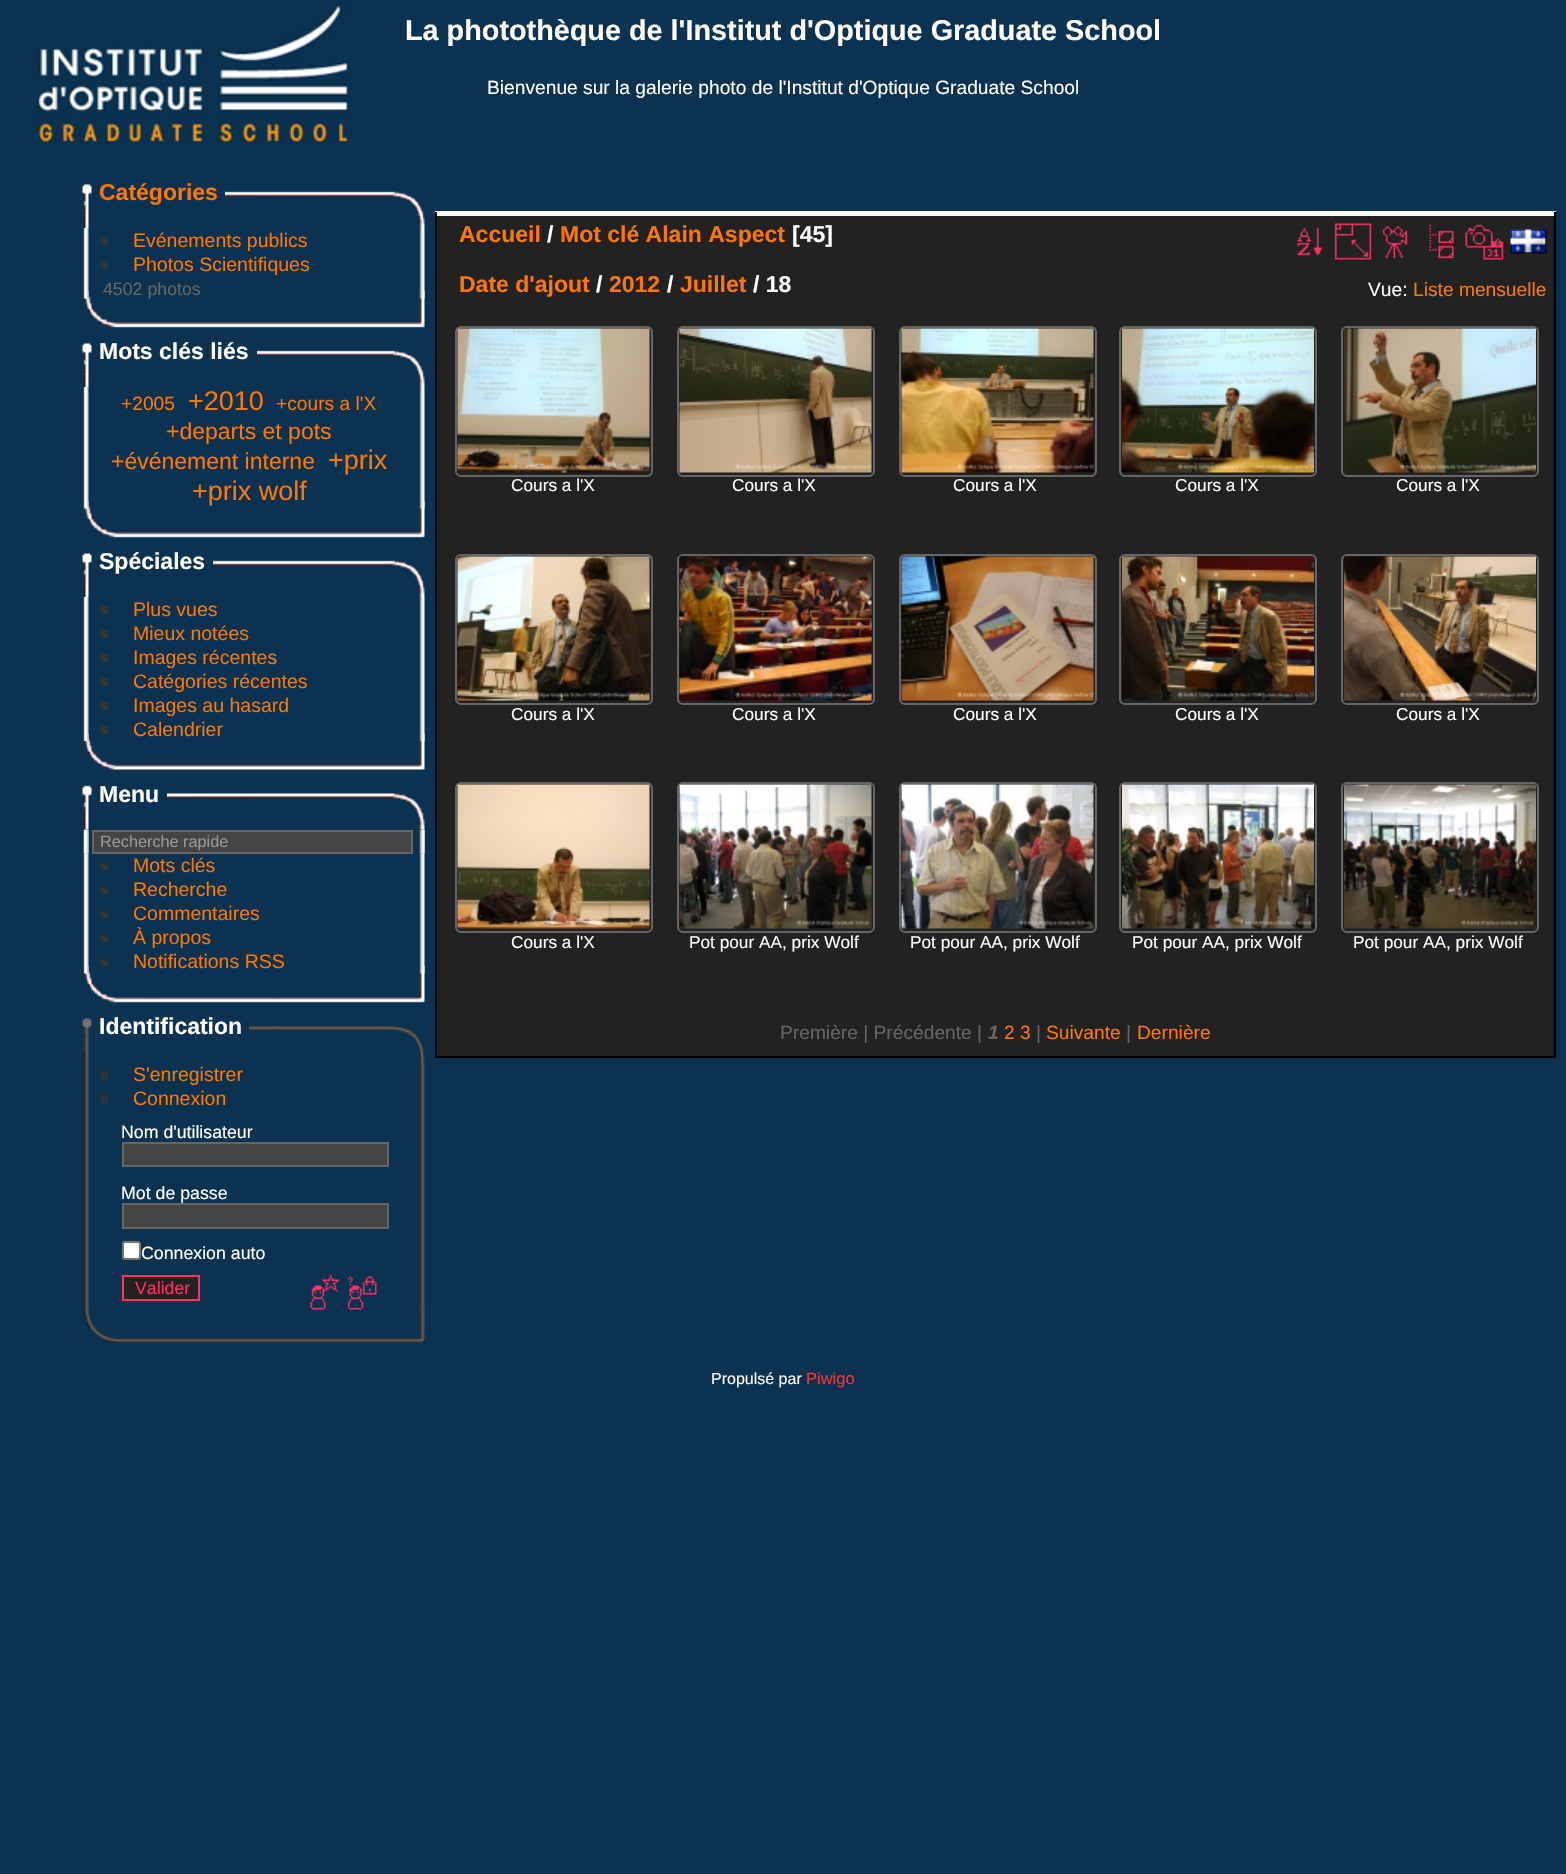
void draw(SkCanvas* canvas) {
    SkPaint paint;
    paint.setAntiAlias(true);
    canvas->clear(0xFF0B3251);
    canvas->drawImageRect(SkImages::DeferredFromEncodedData(SkData::MakeFromFileName("img1.png")), SkRect::MakeXYWH(36, 0, 314, 145), SkSamplingOptions());
    SkFont font1(fontMgr->matchFamilyStyle("Liberation Sans", SkFontStyle::Bold()), 28.8f);
    font1.setSubpixel(true);
    paint.setColor(0xFFFFFFFF);
    canvas->drawString("La photothèque de l'Institut d'Optique Graduate School", 405, 40, font1, paint);
    SkFont font2(fontMgr->matchFamilyStyle("Liberation Sans", SkFontStyle::Normal()), 19.2f);
    font2.setSubpixel(true);
    canvas->drawString("Bienvenue sur la galerie photo de l'Institut d'Optique Graduate School", 487, 94, font2, paint);
    canvas->drawImageRect(SkImages::DeferredFromEncodedData(SkData::MakeFromFileName("img2.png")), SkRect::MakeXYWH(82, 184, 343, 44), SkSamplingOptions());
    paint.setColor(0xFF0B3251);
    canvas->drawRect(SkRect::MakeXYWH(118, 191, 107, 6), paint);
    SkFont font3(fontMgr->matchFamilyStyle("Liberation Sans", SkFontStyle::Bold()), 23);
    font3.setSubpixel(true);
    paint.setColor(0xFFFF7700);
    canvas->drawString("Catégories", 99, 200, font3, paint);
    canvas->drawImageRect(SkImages::DeferredFromEncodedData(SkData::MakeFromFileName("img3.png")), SkRect::MakeXYWH(83, 291, 342, 37), SkSamplingOptions());
    canvas->drawImageRect(SkImages::DeferredFromEncodedData(SkData::MakeFromFileName("img4.png")), SkRect::MakeXYWH(83, 228, 342, 48), SkSamplingOptions());
    paint.setColor(0xFF333333);
    canvas->drawRect(SkRect::MakeXYWH(101, 237, 7, 8), paint);
    SkFont font4(fontMgr->matchFamilyStyle("Liberation Sans", SkFontStyle::Normal()), 19.5f);
    font4.setSubpixel(true);
    paint.setColor(0xFFFF7700);
    canvas->drawString("Evénements publics", 133, 247, font4, paint);
    paint.setColor(0xFF333333);
    canvas->drawRect(SkRect::MakeXYWH(101, 261, 7, 8), paint);
    paint.setColor(0xFFFF7700);
    canvas->drawString("Photos Scientifiques", 133, 271, font4, paint);
    canvas->drawImageRect(SkImages::DeferredFromEncodedData(SkData::MakeFromFileName("img5.png")), SkRect::MakeXYWH(83, 276, 342, 23), SkSamplingOptions());
    SkFont font5(fontMgr->matchFamilyStyle("Liberation Sans", SkFontStyle::Normal()), 17.75f);
    font5.setSubpixel(true);
    paint.setColor(0xFF666666);
    canvas->drawString("4502 photos", 103, 295, font5, paint);
    canvas->drawImageRect(SkImages::DeferredFromEncodedData(SkData::MakeFromFileName("img2.png")), SkRect::MakeXYWH(82, 343, 343, 44), SkSamplingOptions());
    paint.setColor(0xFF0B3251);
    canvas->drawRect(SkRect::MakeXYWH(118, 350, 139, 6), paint);
    paint.setColor(0xFFFFFFFF);
    canvas->drawString("Mots clés liés", 99, 359, font3, paint);
    canvas->drawImageRect(SkImages::DeferredFromEncodedData(SkData::MakeFromFileName("img3.png")), SkRect::MakeXYWH(83, 501, 342, 37), SkSamplingOptions());
    canvas->drawImageRect(SkImages::DeferredFromEncodedData(SkData::MakeFromFileName("img6.png")), SkRect::MakeXYWH(83, 387, 342, 122), SkSamplingOptions());
    paint.setColor(0xFFFF7700);
    canvas->drawString("+2005", 121, 410, font2, paint);
    SkFont font6(fontMgr->matchFamilyStyle("Liberation Sans", SkFontStyle::Normal()), 27);
    font6.setSubpixel(true);
    canvas->drawString("+2010", 188, 410, font6, paint);
    canvas->drawString("+cours a l'X", 276, 410, font2, paint);
    SkFont font7(fontMgr->matchFamilyStyle("Liberation Sans", SkFontStyle::Normal()), 23);
    font7.setSubpixel(true);
    canvas->drawString("+departs et pots", 166, 439, font7, paint);
    canvas->drawString("+événement interne", 111, 469, font7, paint);
    canvas->drawString("+prix", 328, 469, font6, paint);
    canvas->drawString("+prix wolf", 192, 500, font6, paint);
    canvas->drawImageRect(SkImages::DeferredFromEncodedData(SkData::MakeFromFileName("img2.png")), SkRect::MakeXYWH(82, 553, 343, 44), SkSamplingOptions());
    paint.setColor(0xFF0B3251);
    canvas->drawRect(SkRect::MakeXYWH(118, 560, 95, 6), paint);
    paint.setColor(0xFFFFFFFF);
    canvas->drawString("Spéciales", 99, 569, font3, paint);
    canvas->drawImageRect(SkImages::DeferredFromEncodedData(SkData::MakeFromFileName("img7.png")), SkRect::MakeXYWH(83, 733, 342, 37), SkSamplingOptions());
    canvas->drawImageRect(SkImages::DeferredFromEncodedData(SkData::MakeFromFileName("img8.png")), SkRect::MakeXYWH(83, 597, 342, 144), SkSamplingOptions());
    paint.setColor(0xFF333333);
    canvas->drawRect(SkRect::MakeXYWH(101, 606, 7, 8), paint);
    paint.setColor(0xFFFF7700);
    canvas->drawString("Plus vues", 133, 616, font4, paint);
    paint.setColor(0xFF333333);
    canvas->drawRect(SkRect::MakeXYWH(101, 630, 7, 8), paint);
    paint.setColor(0xFFFF7700);
    canvas->drawString("Mieux notées", 133, 640, font4, paint);
    paint.setColor(0xFF333333);
    canvas->drawRect(SkRect::MakeXYWH(101, 654, 7, 8), paint);
    paint.setColor(0xFFFF7700);
    canvas->drawString("Images récentes", 133, 664, font4, paint);
    paint.setColor(0xFF333333);
    canvas->drawRect(SkRect::MakeXYWH(101, 678, 7, 8), paint);
    paint.setColor(0xFFFF7700);
    canvas->drawString("Catégories récentes", 133, 688, font4, paint);
    paint.setColor(0xFF333333);
    canvas->drawRect(SkRect::MakeXYWH(101, 702, 7, 8), paint);
    paint.setColor(0xFFFF7700);
    canvas->drawString("Images au hasard", 133, 712, font4, paint);
    paint.setColor(0xFF333333);
    canvas->drawRect(SkRect::MakeXYWH(101, 726, 7, 8), paint);
    paint.setColor(0xFFFF7700);
    canvas->drawString("Calendrier", 133, 736, font4, paint);
    canvas->drawImageRect(SkImages::DeferredFromEncodedData(SkData::MakeFromFileName("img9.png")), SkRect::MakeXYWH(82, 785, 343, 45), SkSamplingOptions());
    paint.setColor(0xFF0B3251);
    canvas->drawRect(SkRect::MakeXYWH(118, 793, 49, 6), paint);
    paint.setColor(0xFFFFFFFF);
    canvas->drawString("Menu", 99, 802, font3, paint);
    canvas->drawImageRect(SkImages::DeferredFromEncodedData(SkData::MakeFromFileName("img3.png")), SkRect::MakeXYWH(83, 966, 342, 37), SkSamplingOptions());
    canvas->drawImageRect(SkImages::DeferredFromEncodedData(SkData::MakeFromFileName("img10.png")), SkRect::MakeXYWH(83, 829, 342, 25), SkSamplingOptions());
    canvas->drawImageRect(SkImages::DeferredFromEncodedData(SkData::MakeFromFileName("img11.png")), SkRect::MakeXYWH(83, 829, 342, 25), SkSamplingOptions());
    canvas->drawImageRect(SkImages::DeferredFromEncodedData(SkData::MakeFromFileName("img12.png")), SkRect::MakeXYWH(83, 853, 342, 121), SkSamplingOptions());
    paint.setColor(0xFF444444);
    canvas->drawRect(SkRect::MakeXYWH(93, 831, 319, 22), paint);
    paint.setStyle(SkPaint::kStroke_Style);
    paint.setStrokeWidth(2);
    paint.setColor(0xFF666666);
    canvas->drawRect(SkRect::MakeXYWH(93, 831, 319, 22), paint);
    SkFont font8(fontMgr->matchFamilyStyle("Liberation Sans", SkFontStyle::Normal()), 16.25f);
    font8.setSubpixel(true);
    paint.setStyle(SkPaint::kFill_Style);
    paint.setColor(0xFF999999);
    canvas->drawString("Recherche rapide", 100, 847, font8, paint);
    paint.setColor(0xFF333333);
    canvas->drawRect(SkRect::MakeXYWH(101, 863, 7, 7), paint);
    paint.setColor(0xFFFF7700);
    canvas->drawString("Mots clés", 133, 872, font4, paint);
    paint.setColor(0xFF333333);
    canvas->drawRect(SkRect::MakeXYWH(101, 887, 7, 7), paint);
    paint.setColor(0xFFFF7700);
    canvas->drawString("Recherche", 133, 896, font4, paint);
    paint.setColor(0xFF333333);
    canvas->drawRect(SkRect::MakeXYWH(101, 911, 7, 7), paint);
    paint.setColor(0xFFFF7700);
    canvas->drawString("Commentaires", 133, 920, font4, paint);
    paint.setColor(0xFF333333);
    canvas->drawRect(SkRect::MakeXYWH(101, 935, 7, 7), paint);
    paint.setColor(0xFFFF7700);
    canvas->drawString("À propos", 133, 944, font4, paint);
    paint.setColor(0xFF333333);
    canvas->drawRect(SkRect::MakeXYWH(101, 959, 7, 7), paint);
    paint.setColor(0xFFFF7700);
    canvas->drawString("Notifications RSS", 133, 968, font4, paint);
    canvas->drawImageRect(SkImages::DeferredFromEncodedData(SkData::MakeFromFileName("img13.png")), SkRect::MakeXYWH(82, 1018, 343, 44), SkSamplingOptions());
    paint.setColor(0xFF0B3251);
    canvas->drawRect(SkRect::MakeXYWH(118, 1025, 131, 6), paint);
    paint.setColor(0xFFFFFFFF);
    canvas->drawString("Identification", 99, 1034, font3, paint);
    canvas->drawImageRect(SkImages::DeferredFromEncodedData(SkData::MakeFromFileName("img14.png")), SkRect::MakeXYWH(83, 1306, 342, 37), SkSamplingOptions());
    canvas->drawImageRect(SkImages::DeferredFromEncodedData(SkData::MakeFromFileName("img15.png")), SkRect::MakeXYWH(83, 1062, 342, 48), SkSamplingOptions());
    paint.setColor(0xFF333333);
    canvas->drawRect(SkRect::MakeXYWH(101, 1071, 7, 8), paint);
    paint.setColor(0xFFFF7700);
    canvas->drawString("S'enregistrer", 133, 1081, font4, paint);
    paint.setColor(0xFF333333);
    canvas->drawRect(SkRect::MakeXYWH(101, 1095, 7, 8), paint);
    paint.setColor(0xFFFF7700);
    canvas->drawString("Connexion", 133, 1105, font4, paint);
    canvas->drawImageRect(SkImages::DeferredFromEncodedData(SkData::MakeFromFileName("img16.png")), SkRect::MakeXYWH(83, 1110, 342, 204), SkSamplingOptions());
    paint.setColor(0xFFFFFFFF);
    canvas->drawString("Nom d'utilisateur", 121, 1138, font5, paint);
    paint.setColor(0xFF444444);
    canvas->drawRect(SkRect::MakeXYWH(123, 1143, 265, 23), paint);
    paint.setStyle(SkPaint::kStroke_Style);
    paint.setColor(0xFF666666);
    canvas->drawRect(SkRect::MakeXYWH(123, 1143, 265, 23), paint);
    paint.setStyle(SkPaint::kFill_Style);
    paint.setColor(0xFFFFFFFF);
    canvas->drawString("Mot de passe", 121, 1199, font5, paint);
    paint.setColor(0xFF444444);
    canvas->drawRect(SkRect::MakeXYWH(123, 1204, 265, 24), paint);
    paint.setStyle(SkPaint::kStroke_Style);
    paint.setColor(0xFF666666);
    canvas->drawRect(SkRect::MakeXYWH(123, 1204, 265, 24), paint);
    paint.setStyle(SkPaint::kFill_Style);
    paint.setColor(0xFFFFFFFF);
    canvas->drawRoundRect(SkRect::MakeXYWH(123, 1242, 17, 17), 2, 2, paint);
    paint.setStyle(SkPaint::kStroke_Style);
    paint.setColor(0xFF767676);
    canvas->drawRoundRect(SkRect::MakeXYWH(123, 1242, 17, 17), 2, 2, paint);
    paint.setStyle(SkPaint::kFill_Style);
    paint.setColor(0xFFFFFFFF);
    canvas->drawString("Connexion auto", 141, 1259, font5, paint);
    paint.setColor(0xFF222222);
    canvas->drawRect(SkRect::MakeXYWH(123, 1276, 76, 24), paint);
    paint.setStyle(SkPaint::kStroke_Style);
    paint.setColor(0xFFFF3363);
    canvas->drawRect(SkRect::MakeXYWH(123, 1276, 76, 24), paint);
    paint.setStyle(SkPaint::kFill_Style);
    canvas->drawString("Valider", 135, 1294, font5, paint);
    canvas->drawImageRect(SkImages::DeferredFromEncodedData(SkData::MakeFromFileName("img17.png")), SkRect::MakeXYWH(310, 1275, 30, 35), SkSamplingOptions());
    canvas->drawImageRect(SkImages::DeferredFromEncodedData(SkData::MakeFromFileName("img18.png")), SkRect::MakeXYWH(347, 1276, 30, 34), SkSamplingOptions());
    paint.setColor(0xFF222222);
    canvas->drawRect(SkRect::MakeXYWH(437, 216, 1117, 840), paint);
    paint.setColor(0xFFFFFFFF);
    canvas->drawRect(SkRect::MakeXYWH(435, 211, 1121, 5), paint);
    paint.setColor(0xFF000000);
    canvas->drawRect(SkRect::MakeXYWH(1554, 212, 2, 846), paint);
    canvas->drawRect(SkRect::MakeXYWH(435, 1056, 1121, 2), paint);
    canvas->drawRect(SkRect::MakeXYWH(435, 212, 2, 846), paint);
    paint.setColor(0xFFFF7700);
    canvas->drawString("Accueil", 459, 242, font3, paint);
    paint.setColor(0xFFFFFFFF);
    canvas->drawString("/", 547, 242, font3, paint);
    paint.setColor(0xFFFF7700);
    canvas->drawString("Mot clé Alain Aspect", 560, 242, font3, paint);
    paint.setColor(0xFFFFFFFF);
    canvas->drawString("[45]", 792, 242, font3, paint);
    canvas->drawImageRect(SkImages::DeferredFromEncodedData(SkData::MakeFromFileName("img19.png")), SkRect::MakeXYWH(1297, 227, 25, 29), SkSamplingOptions());
    canvas->drawImageRect(SkImages::DeferredFromEncodedData(SkData::MakeFromFileName("img20.png")), SkRect::MakeXYWH(1334, 223, 38, 37), SkSamplingOptions());
    canvas->drawImageRect(SkImages::DeferredFromEncodedData(SkData::MakeFromFileName("img21.png")), SkRect::MakeXYWH(1382, 226, 26, 33), SkSamplingOptions());
    canvas->drawImageRect(SkImages::DeferredFromEncodedData(SkData::MakeFromFileName("img22.png")), SkRect::MakeXYWH(1429, 224, 25, 35), SkSamplingOptions());
    canvas->drawImageRect(SkImages::DeferredFromEncodedData(SkData::MakeFromFileName("img23.png")), SkRect::MakeXYWH(1465, 224, 39, 36), SkSamplingOptions());
    canvas->drawImageRect(SkImages::DeferredFromEncodedData(SkData::MakeFromFileName("img24.png")), SkRect::MakeXYWH(1510, 229, 37, 25), SkSamplingOptions());
    paint.setColor(0xFFFF7700);
    canvas->drawString("Date d'ajout", 459, 292, font3, paint);
    paint.setColor(0xFFFFFFFF);
    canvas->drawString("/", 596, 292, font3, paint);
    paint.setColor(0xFFFF7700);
    canvas->drawString("2012", 609, 292, font3, paint);
    paint.setColor(0xFFFFFFFF);
    canvas->drawString("/", 667, 292, font3, paint);
    paint.setColor(0xFFFF7700);
    canvas->drawString("Juillet", 680, 292, font3, paint);
    paint.setColor(0xFFFFFFFF);
    canvas->drawString("/ 18", 753, 292, font3, paint);
    canvas->drawString("Vue:", 1368, 296, font2, paint);
    paint.setColor(0xFFFF7700);
    canvas->drawString("Liste mensuelle", 1413, 296, font2, paint);
    paint.setStyle(SkPaint::kStroke_Style);
    paint.setColor(0xFF666666);
    canvas->drawRoundRect(SkRect::MakeXYWH(456, 327, 196, 149), 5, 5, paint);
    canvas->drawImageRect(SkImages::DeferredFromEncodedData(SkData::MakeFromFileName("img25.png")), SkRect::MakeXYWH(457, 328, 193, 145), SkSamplingOptions());
    SkFont font9(fontMgr->matchFamilyStyle("Liberation Sans", SkFontStyle::Normal()), 17.25f);
    font9.setSubpixel(true);
    paint.setStyle(SkPaint::kFill_Style);
    paint.setColor(0xFFFFFFFF);
    canvas->drawString("Cours a l'X", 511, 491, font9, paint);
    paint.setStyle(SkPaint::kStroke_Style);
    paint.setColor(0xFF666666);
    canvas->drawRoundRect(SkRect::MakeXYWH(678, 327, 196, 149), 5, 5, paint);
    canvas->drawImageRect(SkImages::DeferredFromEncodedData(SkData::MakeFromFileName("img26.png")), SkRect::MakeXYWH(679, 328, 193, 145), SkSamplingOptions());
    paint.setStyle(SkPaint::kFill_Style);
    paint.setColor(0xFFFFFFFF);
    canvas->drawString("Cours a l'X", 732, 491, font9, paint);
    paint.setStyle(SkPaint::kStroke_Style);
    paint.setColor(0xFF666666);
    canvas->drawRoundRect(SkRect::MakeXYWH(900, 327, 196, 149), 5, 5, paint);
    canvas->drawImageRect(SkImages::DeferredFromEncodedData(SkData::MakeFromFileName("img27.png")), SkRect::MakeXYWH(901, 328, 193, 145), SkSamplingOptions());
    paint.setStyle(SkPaint::kFill_Style);
    paint.setColor(0xFFFFFFFF);
    canvas->drawString("Cours a l'X", 953, 491, font9, paint);
    paint.setStyle(SkPaint::kStroke_Style);
    paint.setColor(0xFF666666);
    canvas->drawRoundRect(SkRect::MakeXYWH(1120, 327, 196, 149), 5, 5, paint);
    canvas->drawImageRect(SkImages::DeferredFromEncodedData(SkData::MakeFromFileName("img28.png")), SkRect::MakeXYWH(1122, 328, 192, 145), SkSamplingOptions());
    paint.setStyle(SkPaint::kFill_Style);
    paint.setColor(0xFFFFFFFF);
    canvas->drawString("Cours a l'X", 1175, 491, font9, paint);
    paint.setStyle(SkPaint::kStroke_Style);
    paint.setColor(0xFF666666);
    canvas->drawRoundRect(SkRect::MakeXYWH(1342, 327, 196, 149), 5, 5, paint);
    canvas->drawImageRect(SkImages::DeferredFromEncodedData(SkData::MakeFromFileName("img29.png")), SkRect::MakeXYWH(1344, 328, 192, 145), SkSamplingOptions());
    paint.setStyle(SkPaint::kFill_Style);
    paint.setColor(0xFFFFFFFF);
    canvas->drawString("Cours a l'X", 1396, 491, font9, paint);
    paint.setStyle(SkPaint::kStroke_Style);
    paint.setColor(0xFF666666);
    canvas->drawRoundRect(SkRect::MakeXYWH(456, 555, 196, 149), 5, 5, paint);
    canvas->drawImageRect(SkImages::DeferredFromEncodedData(SkData::MakeFromFileName("img30.png")), SkRect::MakeXYWH(457, 556, 193, 145), SkSamplingOptions());
    paint.setStyle(SkPaint::kFill_Style);
    paint.setColor(0xFFFFFFFF);
    canvas->drawString("Cours a l'X", 511, 720, font9, paint);
    paint.setStyle(SkPaint::kStroke_Style);
    paint.setColor(0xFF666666);
    canvas->drawRoundRect(SkRect::MakeXYWH(678, 555, 196, 149), 5, 5, paint);
    canvas->drawImageRect(SkImages::DeferredFromEncodedData(SkData::MakeFromFileName("img31.png")), SkRect::MakeXYWH(679, 556, 193, 145), SkSamplingOptions());
    paint.setStyle(SkPaint::kFill_Style);
    paint.setColor(0xFFFFFFFF);
    canvas->drawString("Cours a l'X", 732, 720, font9, paint);
    paint.setStyle(SkPaint::kStroke_Style);
    paint.setColor(0xFF666666);
    canvas->drawRoundRect(SkRect::MakeXYWH(900, 555, 196, 149), 5, 5, paint);
    canvas->drawImageRect(SkImages::DeferredFromEncodedData(SkData::MakeFromFileName("img32.png")), SkRect::MakeXYWH(901, 556, 193, 145), SkSamplingOptions());
    paint.setStyle(SkPaint::kFill_Style);
    paint.setColor(0xFFFFFFFF);
    canvas->drawString("Cours a l'X", 953, 720, font9, paint);
    paint.setStyle(SkPaint::kStroke_Style);
    paint.setColor(0xFF666666);
    canvas->drawRoundRect(SkRect::MakeXYWH(1120, 555, 196, 149), 5, 5, paint);
    canvas->drawImageRect(SkImages::DeferredFromEncodedData(SkData::MakeFromFileName("img33.png")), SkRect::MakeXYWH(1122, 556, 192, 145), SkSamplingOptions());
    paint.setStyle(SkPaint::kFill_Style);
    paint.setColor(0xFFFFFFFF);
    canvas->drawString("Cours a l'X", 1175, 720, font9, paint);
    paint.setStyle(SkPaint::kStroke_Style);
    paint.setColor(0xFF666666);
    canvas->drawRoundRect(SkRect::MakeXYWH(1342, 555, 196, 149), 5, 5, paint);
    canvas->drawImageRect(SkImages::DeferredFromEncodedData(SkData::MakeFromFileName("img34.png")), SkRect::MakeXYWH(1344, 556, 192, 145), SkSamplingOptions());
    paint.setStyle(SkPaint::kFill_Style);
    paint.setColor(0xFFFFFFFF);
    canvas->drawString("Cours a l'X", 1396, 720, font9, paint);
    paint.setStyle(SkPaint::kStroke_Style);
    paint.setColor(0xFF666666);
    canvas->drawRoundRect(SkRect::MakeXYWH(456, 783, 196, 149), 5, 5, paint);
    canvas->drawImageRect(SkImages::DeferredFromEncodedData(SkData::MakeFromFileName("img35.png")), SkRect::MakeXYWH(457, 784, 193, 145), SkSamplingOptions());
    paint.setStyle(SkPaint::kFill_Style);
    paint.setColor(0xFFFFFFFF);
    canvas->drawString("Cours a l'X", 511, 948, font9, paint);
    paint.setStyle(SkPaint::kStroke_Style);
    paint.setColor(0xFF666666);
    canvas->drawRoundRect(SkRect::MakeXYWH(678, 783, 196, 149), 5, 5, paint);
    canvas->drawImageRect(SkImages::DeferredFromEncodedData(SkData::MakeFromFileName("img36.png")), SkRect::MakeXYWH(679, 784, 193, 145), SkSamplingOptions());
    paint.setStyle(SkPaint::kFill_Style);
    paint.setColor(0xFFFFFFFF);
    canvas->drawString("Pot pour AA, prix Wolf", 689, 948, font9, paint);
    paint.setStyle(SkPaint::kStroke_Style);
    paint.setColor(0xFF666666);
    canvas->drawRoundRect(SkRect::MakeXYWH(900, 783, 196, 149), 5, 5, paint);
    canvas->drawImageRect(SkImages::DeferredFromEncodedData(SkData::MakeFromFileName("img37.png")), SkRect::MakeXYWH(901, 784, 193, 145), SkSamplingOptions());
    paint.setStyle(SkPaint::kFill_Style);
    paint.setColor(0xFFFFFFFF);
    canvas->drawString("Pot pour AA, prix Wolf", 910, 948, font9, paint);
    paint.setStyle(SkPaint::kStroke_Style);
    paint.setColor(0xFF666666);
    canvas->drawRoundRect(SkRect::MakeXYWH(1120, 783, 196, 149), 5, 5, paint);
    canvas->drawImageRect(SkImages::DeferredFromEncodedData(SkData::MakeFromFileName("img38.png")), SkRect::MakeXYWH(1122, 784, 192, 145), SkSamplingOptions());
    paint.setStyle(SkPaint::kFill_Style);
    paint.setColor(0xFFFFFFFF);
    canvas->drawString("Pot pour AA, prix Wolf", 1132, 948, font9, paint);
    paint.setStyle(SkPaint::kStroke_Style);
    paint.setColor(0xFF666666);
    canvas->drawRoundRect(SkRect::MakeXYWH(1342, 783, 196, 149), 5, 5, paint);
    canvas->drawImageRect(SkImages::DeferredFromEncodedData(SkData::MakeFromFileName("img39.png")), SkRect::MakeXYWH(1344, 784, 192, 145), SkSamplingOptions());
    paint.setStyle(SkPaint::kFill_Style);
    paint.setColor(0xFFFFFFFF);
    canvas->drawString("Pot pour AA, prix Wolf", 1353, 948, font9, paint);
    paint.setColor(0xFF666666);
    canvas->drawString("Première | Précédente |", 780, 1039, font2, paint);
    SkFont font10(fontMgr->matchFamilyStyle("Liberation Sans", SkFontStyle::BoldItalic()), 19.2f);
    font10.setSubpixel(true);
    canvas->drawString("1", 988, 1039, font10, paint);
    paint.setColor(0xFFFF7700);
    canvas->drawString("2 3", 1004, 1039, font2, paint);
    paint.setColor(0xFF666666);
    canvas->drawString("|", 1036, 1039, font2, paint);
    paint.setColor(0xFFFF7700);
    canvas->drawString("Suivante", 1046, 1039, font2, paint);
    paint.setColor(0xFF666666);
    canvas->drawString("|", 1126, 1039, font2, paint);
    paint.setColor(0xFFFF7700);
    canvas->drawString("Dernière", 1137, 1039, font2, paint);
    SkFont font11(fontMgr->matchFamilyStyle("Liberation Sans", SkFontStyle::Normal()), 16);
    font11.setSubpixel(true);
    paint.setColor(0xFFFFFFFF);
    canvas->drawString("Propulsé par", 711, 1384, font11, paint);
    SkFont font12(fontMgr->matchFamilyStyle("Liberation Sans", SkFontStyle::Normal()), 16.5f);
    font12.setSubpixel(true);
    paint.setColor(0xFFFF3333);
    canvas->drawString("Piwigo", 806, 1384, font12, paint);
}
